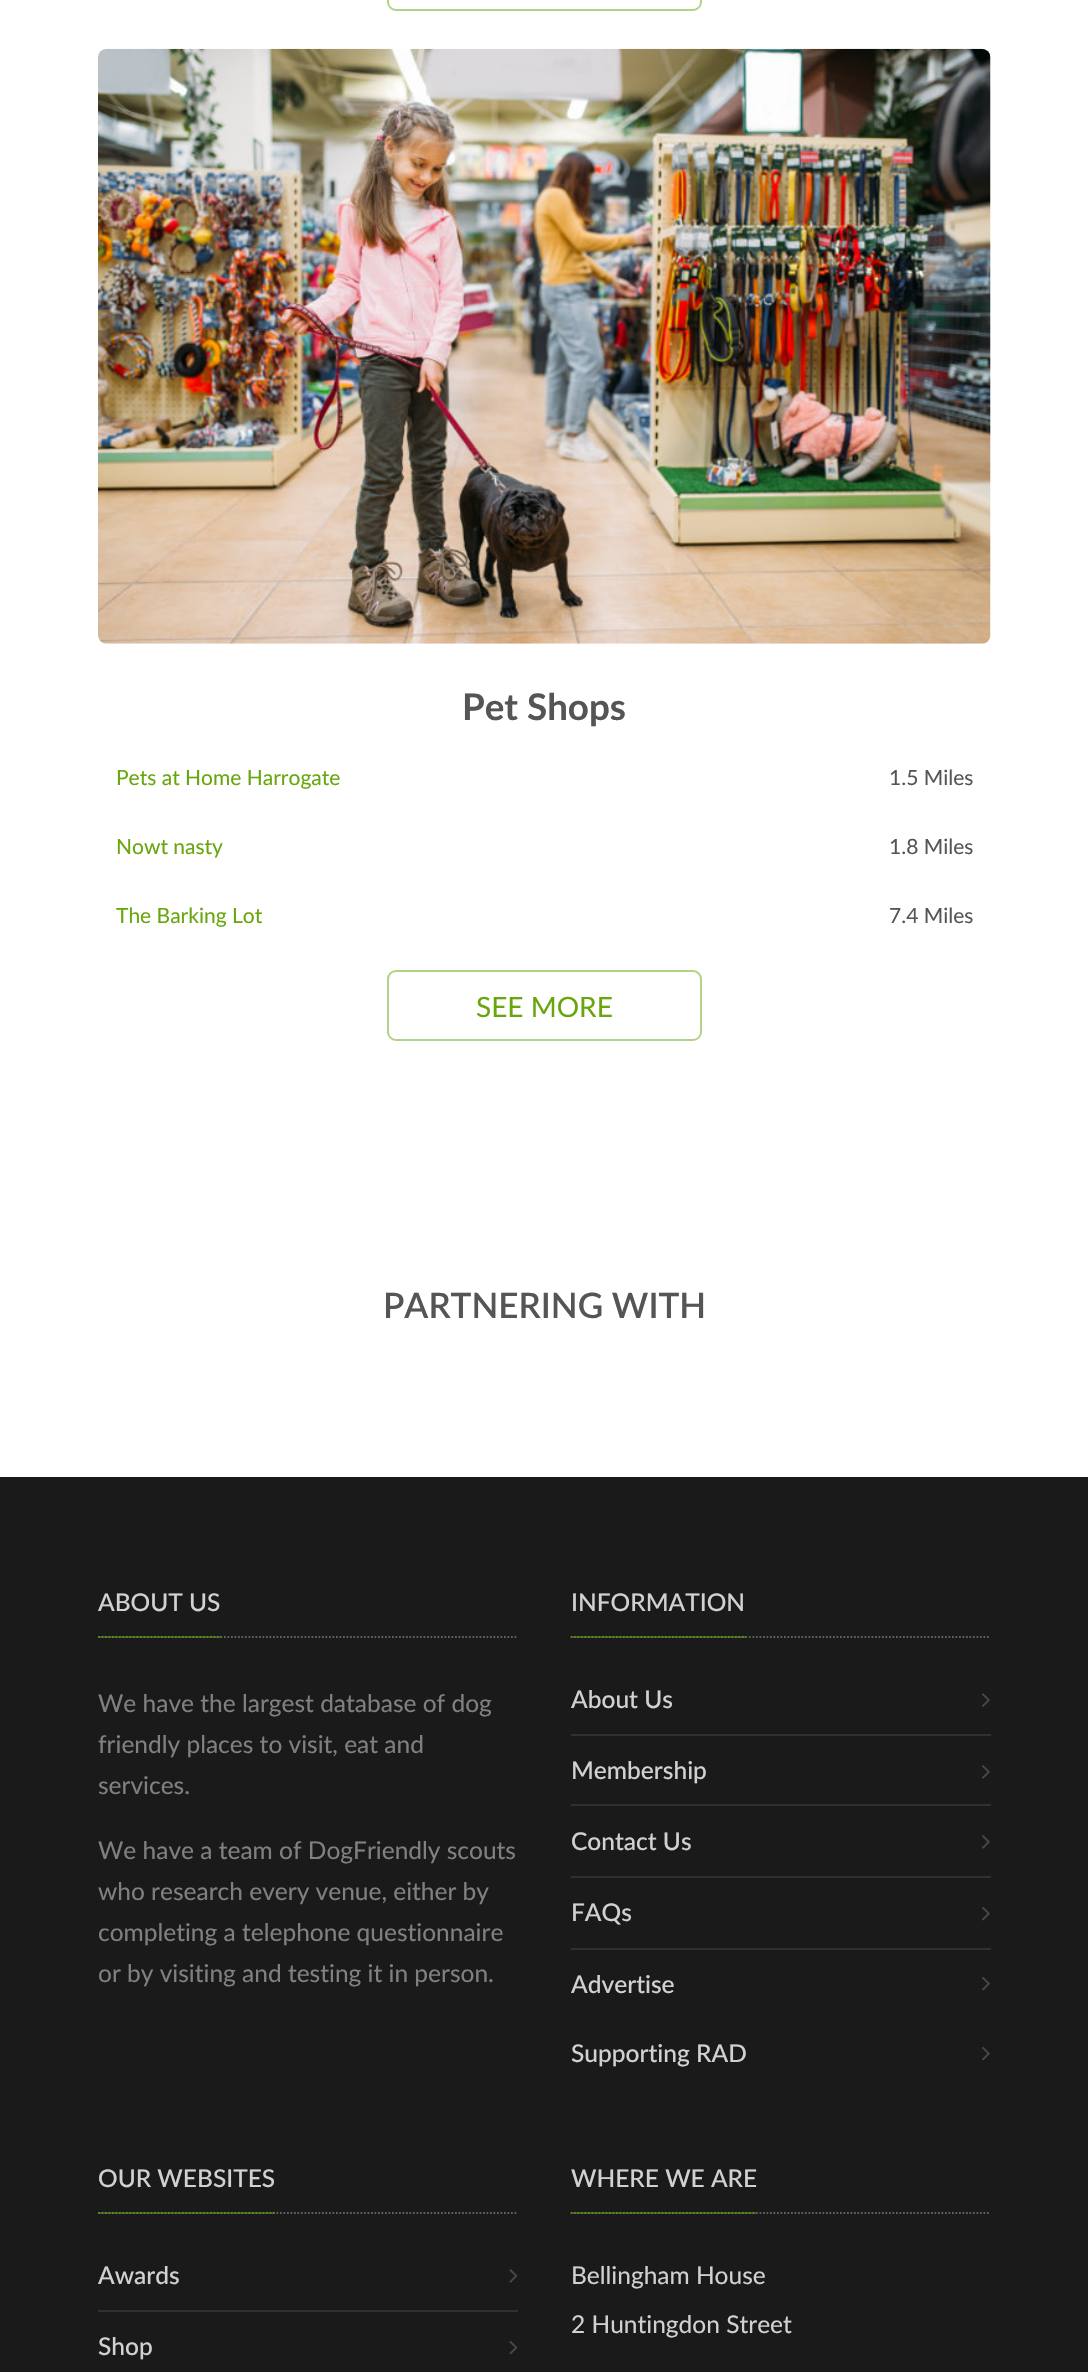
void draw(SkCanvas* canvas) {
    SkPaint paint;
    paint.setAntiAlias(true);
    canvas->clear(0xFFFFFFFF);
    paint.setStyle(SkPaint::kStroke_Style);
    paint.setStrokeWidth(2);
    paint.setColor(0xFFB0D387);
    canvas->drawRoundRect(SkRect::MakeXYWH(388, -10, 313, 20), 8, 8, paint);
    canvas->drawImageRect(SkImages::DeferredFromEncodedData(SkData::MakeFromFileName("img1.png")), SkRect::MakeXYWH(98, 48, 893, 596), SkSamplingOptions());
    SkFont font1(fontMgr->matchFamilyStyle("Lato", SkFontStyle::Bold()), 36.75f);
    font1.setSubpixel(true);
    paint.setStyle(SkPaint::kFill_Style);
    paint.setColor(0xFF555555);
    canvas->drawString("Pet Shops", 462, 720, font1, paint);
    SkFont font2(fontMgr->matchFamilyStyle("Lato", SkFontStyle::Normal()), 21);
    font2.setSubpixel(true);
    paint.setColor(0xFF68A60D);
    canvas->drawString("Pets at Home Harrogate", 116, 785, font2, paint);
    paint.setColor(0xFF555555);
    canvas->drawString("1.5 Miles", 889, 785, font2, paint);
    paint.setColor(0xFF68A60D);
    canvas->drawString("Nowt nasty", 116, 854, font2, paint);
    paint.setColor(0xFF555555);
    canvas->drawString("1.8 Miles", 889, 854, font2, paint);
    paint.setColor(0xFF68A60D);
    canvas->drawString("The Barking Lot", 116, 923, font2, paint);
    paint.setColor(0xFF555555);
    canvas->drawString("7.4 Miles", 889, 923, font2, paint);
    paint.setStyle(SkPaint::kStroke_Style);
    paint.setColor(0xFFB0D387);
    canvas->drawRoundRect(SkRect::MakeXYWH(388, 971, 313, 69), 8, 8, paint);
    SkFont font3(fontMgr->matchFamilyStyle("Lato", SkFontStyle::Normal()), 28);
    font3.setSubpixel(true);
    paint.setStyle(SkPaint::kFill_Style);
    paint.setColor(0xFF68A60D);
    canvas->drawString("SEE MORE", 476, 1017, font3, paint);
    SkFont font4(fontMgr->matchFamilyStyle("Lato", SkFontStyle(600, SkFontStyle::kNormal_Width, SkFontStyle::kUpright_Slant)), 35);
    font4.setSubpixel(true);
    paint.setColor(0xFF555555);
    canvas->drawString("PARTNERING WITH", 383, 1318, font4, paint);
    paint.setColor(0xFF1A1A1A);
    canvas->drawRect(SkRect::MakeXYWH(0, 1477, 1088, 895), paint);
    paint.setStyle(SkPaint::kStroke_Style);
    paint.setStrokeWidth(1.8f);
    paint.setColor(0xFF5F5F5F);
    paint.setPathEffect(SkDashPathEffect::Make({{1.75f, 1.75f}}, 0));
    canvas->drawPath(SkPathBuilder().moveTo(98, 1637).lineTo(518, 1637).detach(), paint);
    paint.setPathEffect(nullptr);
    paint.setStyle(SkPaint::kFill_Style);
    paint.setColor(0x8061A60E);
    canvas->drawRect(SkRect::MakeXYWH(98, 1636, 123, 2), paint);
    SkFont font5(fontMgr->matchFamilyStyle("Lato", SkFontStyle(500, SkFontStyle::kNormal_Width, SkFontStyle::kUpright_Slant)), 24.5f);
    font5.setSubpixel(true);
    paint.setColor(0xFFD1D1D1);
    canvas->drawString("ABOUT US", 98, 1611, font5, paint);
    SkFont font6(fontMgr->matchFamilyStyle("Lato", SkFontStyle::Normal()), 24.5f);
    font6.setSubpixel(true);
    paint.setColor(0xFF808080);
    canvas->drawString("We have the largest database of dog", 98, 1712, font6, paint);
    canvas->drawString("friendly places to visit, eat and", 98, 1753, font6, paint);
    canvas->drawString("services.", 98, 1794, font6, paint);
    canvas->drawString("We have a team of DogFriendly scouts", 98, 1859, font6, paint);
    canvas->drawString("who research every venue, either by", 98, 1900, font6, paint);
    canvas->drawString("completing a telephone questionnaire", 98, 1941, font6, paint);
    canvas->drawString("or by visiting and testing it in person.", 98, 1982, font6, paint);
    paint.setStyle(SkPaint::kStroke_Style);
    paint.setColor(0xFF5F5F5F);
    paint.setPathEffect(SkDashPathEffect::Make({{1.75f, 1.75f}}, 0));
    canvas->drawPath(SkPathBuilder().moveTo(570.5f, 1637).lineTo(990.5f, 1637).detach(), paint);
    paint.setPathEffect(nullptr);
    paint.setStyle(SkPaint::kFill_Style);
    paint.setColor(0x8061A60E);
    canvas->drawRect(SkRect::MakeXYWH(571, 1636, 175, 2), paint);
    paint.setColor(0xFFD1D1D1);
    canvas->drawString("INFORMATION", 571, 1611, font5, paint);
    paint.setColor(0xFF313131);
    canvas->drawRect(SkRect::MakeXYWH(571, 1734, 420, 2), paint);
    paint.setColor(0xFFD1D1D1);
    canvas->drawString("About Us", 571, 1708, font5, paint);
    canvas->drawImageRect(SkImages::DeferredFromEncodedData(SkData::MakeFromFileName("img2.png")), SkRect::MakeXYWH(982, 1693, 8, 14), SkSamplingOptions());
    paint.setColor(0xFF313131);
    canvas->drawRect(SkRect::MakeXYWH(571, 1804, 420, 2), paint);
    paint.setColor(0xFFD1D1D1);
    canvas->drawString("Membership", 571, 1779, font5, paint);
    canvas->drawImageRect(SkImages::DeferredFromEncodedData(SkData::MakeFromFileName("img3.png")), SkRect::MakeXYWH(982, 1765, 8, 14), SkSamplingOptions());
    paint.setColor(0xFF313131);
    canvas->drawRect(SkRect::MakeXYWH(571, 1876, 420, 2), paint);
    paint.setColor(0xFFD1D1D1);
    canvas->drawString("Contact Us", 571, 1850, font5, paint);
    canvas->drawImageRect(SkImages::DeferredFromEncodedData(SkData::MakeFromFileName("img3.png")), SkRect::MakeXYWH(982, 1835, 8, 14), SkSamplingOptions());
    paint.setColor(0xFF313131);
    canvas->drawRect(SkRect::MakeXYWH(571, 1948, 420, 2), paint);
    paint.setColor(0xFFD1D1D1);
    canvas->drawString("FAQs", 571, 1921, font5, paint);
    canvas->drawImageRect(SkImages::DeferredFromEncodedData(SkData::MakeFromFileName("img4.png")), SkRect::MakeXYWH(982, 1907, 8, 14), SkSamplingOptions());
    canvas->drawString("Advertise", 571, 1993, font5, paint);
    canvas->drawImageRect(SkImages::DeferredFromEncodedData(SkData::MakeFromFileName("img4.png")), SkRect::MakeXYWH(982, 1977, 8, 14), SkSamplingOptions());
    canvas->drawString("Supporting RAD", 571, 2062, font5, paint);
    canvas->drawImageRect(SkImages::DeferredFromEncodedData(SkData::MakeFromFileName("img4.png")), SkRect::MakeXYWH(982, 2047, 8, 14), SkSamplingOptions());
    paint.setStyle(SkPaint::kStroke_Style);
    paint.setColor(0xFF5F5F5F);
    paint.setPathEffect(SkDashPathEffect::Make({{1.75f, 1.75f}}, 0));
    canvas->drawPath(SkPathBuilder().moveTo(98, 2213).lineTo(518, 2213).detach(), paint);
    paint.setPathEffect(nullptr);
    paint.setStyle(SkPaint::kFill_Style);
    paint.setColor(0x8061A60E);
    canvas->drawRect(SkRect::MakeXYWH(98, 2212, 177, 2), paint);
    paint.setColor(0xFFD1D1D1);
    canvas->drawString("OUR WEBSITES", 98, 2187, font5, paint);
    paint.setColor(0xFF313131);
    canvas->drawRect(SkRect::MakeXYWH(98, 2310, 420, 2), paint);
    paint.setColor(0xFFD1D1D1);
    canvas->drawString("Awards", 98, 2284, font5, paint);
    canvas->drawImageRect(SkImages::DeferredFromEncodedData(SkData::MakeFromFileName("img5.png")), SkRect::MakeXYWH(509, 2269, 9, 14), SkSamplingOptions());
    canvas->drawString("Shop", 98, 2355, font5, paint);
    canvas->drawImageRect(SkImages::DeferredFromEncodedData(SkData::MakeFromFileName("img6.png")), SkRect::MakeXYWH(509, 2341, 9, 14), SkSamplingOptions());
    paint.setStyle(SkPaint::kStroke_Style);
    paint.setColor(0xFF5F5F5F);
    paint.setPathEffect(SkDashPathEffect::Make({{1.75f, 1.75f}}, 0));
    canvas->drawPath(SkPathBuilder().moveTo(570.5f, 2213).lineTo(990.5f, 2213).detach(), paint);
    paint.setPathEffect(nullptr);
    paint.setStyle(SkPaint::kFill_Style);
    paint.setColor(0x8061A60E);
    canvas->drawRect(SkRect::MakeXYWH(571, 2212, 185, 2), paint);
    paint.setColor(0xFFD1D1D1);
    canvas->drawString("WHERE WE ARE", 571, 2187, font5, paint);
    canvas->drawString("Bellingham House", 571, 2284, font6, paint);
    canvas->drawString("2 Huntingdon Street", 571, 2333, font6, paint);
}
